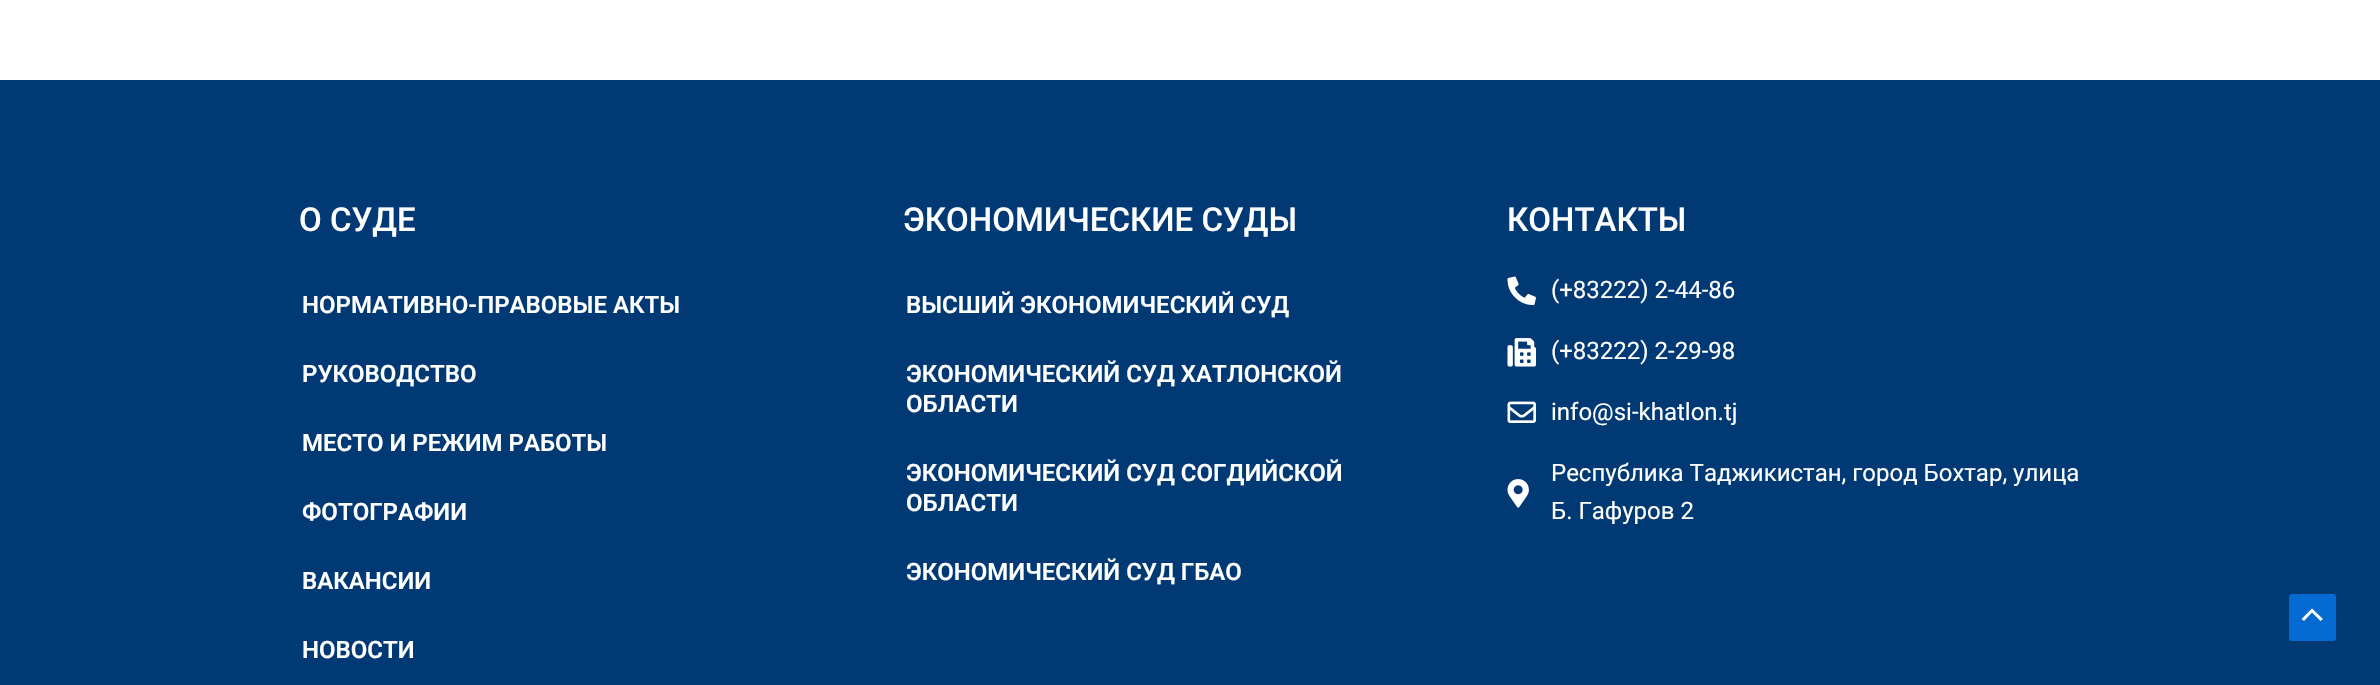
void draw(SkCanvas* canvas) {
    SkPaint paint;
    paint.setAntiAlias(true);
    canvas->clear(0xFFFFFFFF);
    paint.setColor(0xFF003973);
    canvas->drawRect(SkRect::MakeXYWH(0, 80, 2380, 605), paint);
    SkFont font1(fontMgr->matchFamilyStyle("Roboto", SkFontStyle(500, SkFontStyle::kNormal_Width, SkFontStyle::kUpright_Slant)), 33);
    font1.setSubpixel(true);
    paint.setColor(0xFFFFFFFF);
    canvas->drawString("О СУДЕ", 299, 231, font1, paint);
    SkFont font2(fontMgr->matchFamilyStyle("Roboto", SkFontStyle(600, SkFontStyle::kNormal_Width, SkFontStyle::kUpright_Slant)), 24);
    font2.setSubpixel(true);
    canvas->drawString("НОРМАТИВНО-ПРАВОВЫЕ АКТЫ", 302, 313, font2, paint);
    canvas->drawString("РУКОВОДСТВО", 302, 382, font2, paint);
    canvas->drawString("МЕСТО И РЕЖИМ РАБОТЫ", 302, 451, font2, paint);
    canvas->drawString("ФОТОГРАФИИ", 302, 520, font2, paint);
    canvas->drawString("ВАКАНСИИ", 302, 589, font2, paint);
    canvas->drawString("НОВОСТИ", 302, 658, font2, paint);
    canvas->drawString("ЭКОНОМИЧЕСКИЕ СУДЫ", 903, 231, font1, paint);
    canvas->drawString("ВЫСШИЙ ЭКОНОМИЧЕСКИЙ СУД", 906, 313, font2, paint);
    canvas->drawString("ЭКОНОМИЧЕСКИЙ СУД ХАТЛОНСКОЙ", 906, 382, font2, paint);
    canvas->drawString("ОБЛАСТИ", 906, 412, font2, paint);
    canvas->drawString("ЭКОНОМИЧЕСКИЙ СУД СОГДИЙСКОЙ", 906, 481, font2, paint);
    canvas->drawString("ОБЛАСТИ", 906, 511, font2, paint);
    canvas->drawString("ЭКОНОМИЧЕСКИЙ СУД ГБАО", 906, 580, font2, paint);
    canvas->drawString("КОНТАКТЫ", 1507, 231, font1, paint);
    canvas->drawImageRect(SkImages::DeferredFromEncodedData(SkData::MakeFromFileName("img1.png")), SkRect::MakeXYWH(1507, 276, 29, 30), SkSamplingOptions());
    SkFont font3(fontMgr->matchFamilyStyle("Roboto", SkFontStyle::Normal()), 24);
    font3.setSubpixel(true);
    canvas->drawString("(+83222) 2-44-86", 1551, 298, font3, paint);
    canvas->drawImageRect(SkImages::DeferredFromEncodedData(SkData::MakeFromFileName("img2.png")), SkRect::MakeXYWH(1507, 338, 29, 29), SkSamplingOptions());
    canvas->drawString("(+83222) 2-29-98", 1551, 359, font3, paint);
    canvas->drawImageRect(SkImages::DeferredFromEncodedData(SkData::MakeFromFileName("img3.png")), SkRect::MakeXYWH(1507, 401, 29, 22), SkSamplingOptions());
    canvas->drawString("info@si-khatlon.tj", 1551, 420, font3, paint);
    canvas->drawImageRect(SkImages::DeferredFromEncodedData(SkData::MakeFromFileName("img4.png")), SkRect::MakeXYWH(1507, 479, 22, 29), SkSamplingOptions());
    canvas->drawString("Республика Таджикистан, город Бохтар, улица", 1551, 481, font3, paint);
    canvas->drawString("Б. Гафуров 2", 1551, 519, font3, paint);
    paint.setColor(0xFF046BD2);
    canvas->drawRoundRect(SkRect::MakeXYWH(2289, 594, 47, 47), 3, 3, paint);
    paint.setColor(0xFFFFFFFF);
    canvas->drawPath(SkPathBuilder().moveTo(2323, 619).lineTo(2312, 608.5f).lineTo(2301.5f, 619).lineTo(2304, 621).lineTo(2312, 612.5f).lineTo(2320.5f, 621).close().detach(), paint);
}
